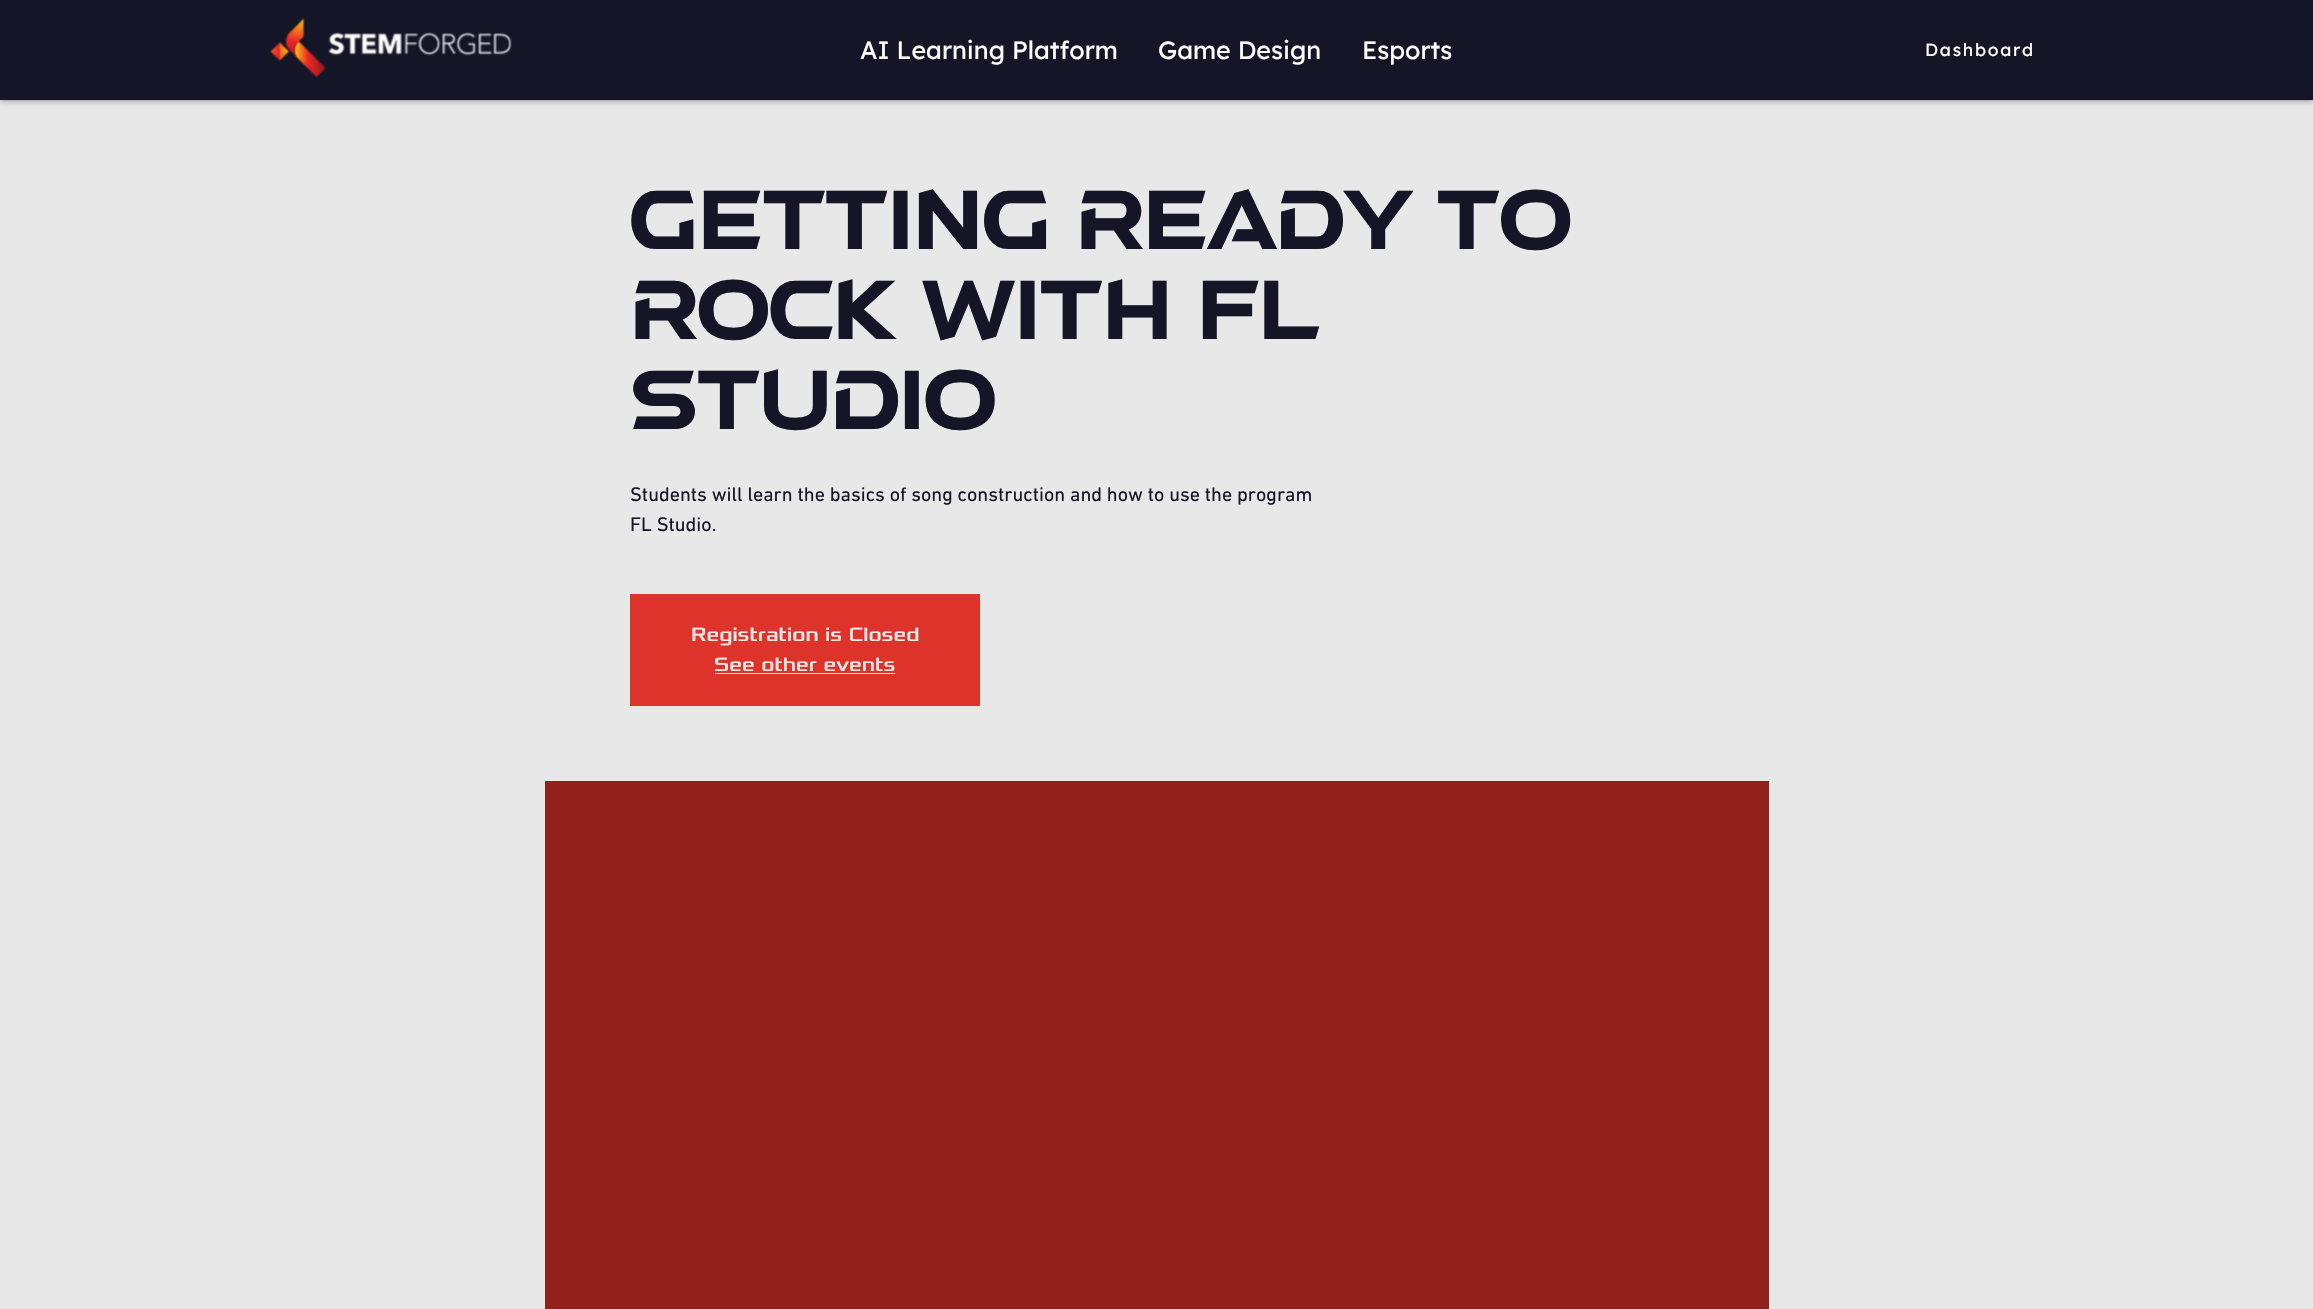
void draw(SkCanvas* canvas) {
    SkPaint paint;
    paint.setAntiAlias(true);
    auto spacedText = [&](const char* s, float x, float y, const SkFont& font, const SkPaint& ink, float letter, float word) {
        std::vector<SkGlyphID> glyphs(font.countText(s, strlen(s), SkTextEncoding::kUTF8));
        std::vector<float> xs(glyphs.size());
        font.textToGlyphs(s, strlen(s), SkTextEncoding::kUTF8, glyphs);
        font.getXPos(glyphs, xs, x);
        float extra = 0;
        for (size_t i = 0; i < glyphs.size(); i++) {
            xs[i] += extra;
            extra += letter + word * (glyphs[i] == font.unicharToGlyph(' '));
        }
        canvas->drawTextBlob(SkTextBlob::MakeFromPosHGlyphs(glyphs, xs, y, font), 0, 0, ink);
    };
    canvas->clear(0xFFE8E8E9);
    paint.setColor(0x80000000);
    paint.setMaskFilter(SkMaskFilter::MakeBlur(kNormal_SkBlurStyle, 3));
    canvas->drawRect(SkRect::MakeXYWH(0, 0, 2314, 100), paint);
    paint.setMaskFilter(nullptr);
    paint.setColor(0xFF141627);
    canvas->drawRect(SkRect::MakeXYWH(0, 0, 2313, 100), paint);
    canvas->drawImageRect(SkImages::DeferredFromEncodedData(SkData::MakeFromFileName("img1.png")), SkRect::MakeXYWH(269, 18, 243, 60), SkSamplingOptions());
    SkFont font1(fontMgr->matchFamilyStyle("Lexend Deca", SkFontStyle::Normal()), 25);
    font1.setSubpixel(true);
    paint.setColor(0xFFFFFFFF);
    canvas->drawString("AI Learning Platform", 860, 59, font1, paint);
    canvas->drawString("Game Design", 1158, 59, font1, paint);
    canvas->drawString("Esports", 1362, 59, font1, paint);
    SkFont font2(fontMgr->matchFamilyStyle("Lexend Deca", SkFontStyle::Normal()), 17.5f);
    font2.setSubpixel(true);
    spacedText("Dashboard", 1925, 56, font2, paint, 1.75f, 0);
    SkFont font3(fontMgr->matchFamilyStyle("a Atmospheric", SkFontStyle::Normal()), 75);
    font3.setSubpixel(true);
    paint.setColor(0xFF141627);
    canvas->drawString("Getting Ready to", 630, 249, font3, paint);
    canvas->drawString("Rock with FL", 630, 339, font3, paint);
    canvas->drawString("Studio", 630, 429, font3, paint);
    SkFont font4(fontMgr->matchFamilyStyle("DIN Next", SkFontStyle::Normal()), 20);
    font4.setSubpixel(true);
    canvas->drawString("Students will learn the basics of song construction and how to use the program", 630, 501, font4, paint);
    canvas->drawString("FL Studio.", 630, 531, font4, paint);
    paint.setColor(0xFFDD332A);
    canvas->drawRect(SkRect::MakeXYWH(630, 594, 350, 112), paint);
    SkFont font5(fontMgr->matchFamilyStyle("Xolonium", SkFontStyle::Normal()), 20);
    font5.setSubpixel(true);
    paint.setColor(0xFFE8E8E9);
    canvas->drawString("Registration is Closed", 691, 641, font5, paint);
    canvas->drawString("See other events", 714, 671, font5, paint);
    canvas->drawRect(SkRect::MakeXYWH(715, 673, 180, 1), paint);
    paint.setColor(0xFF93221C);
    canvas->drawRect(SkRect::MakeXYWH(545, 781, 1224, 528), paint);
}
